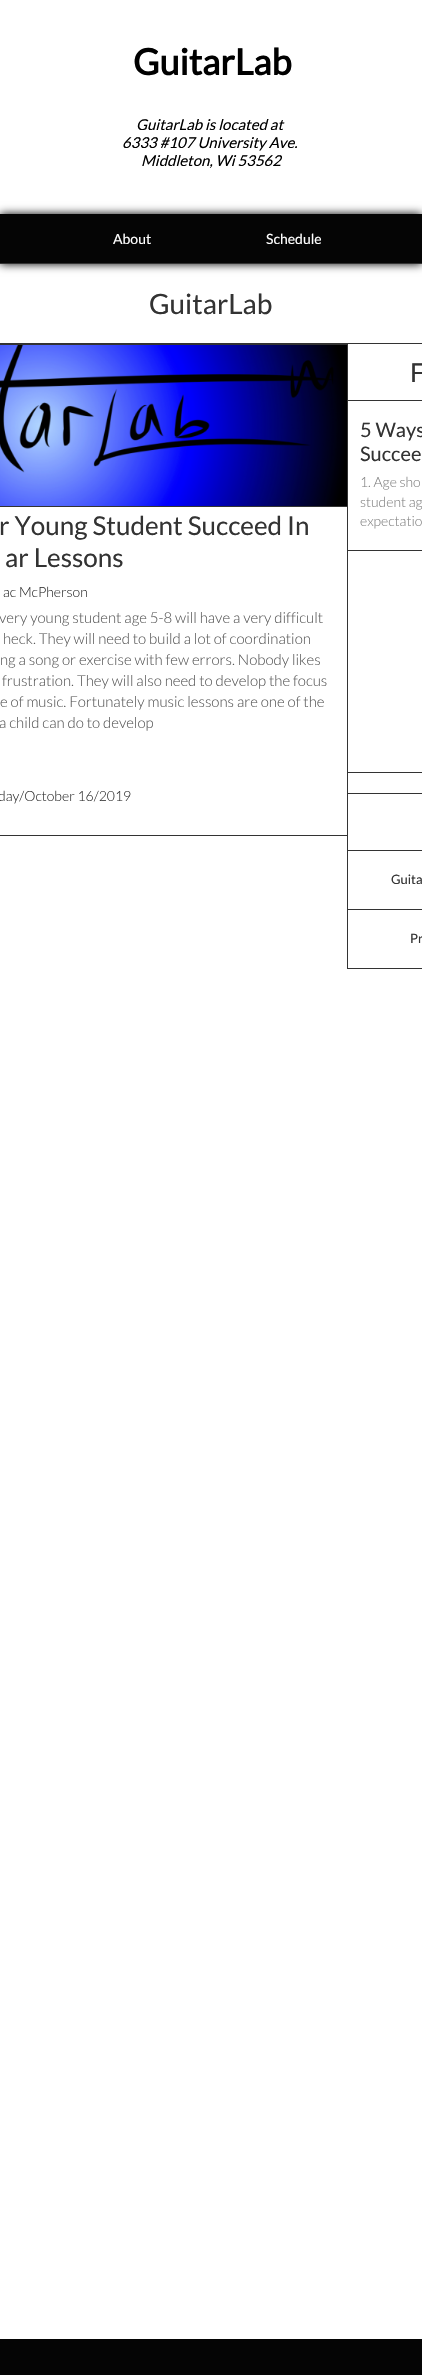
void draw(SkCanvas* canvas) {
    SkPaint paint;
    paint.setAntiAlias(true);
    canvas->clear(0xFFFFFFFF);
    SkFont font1(fontMgr->matchFamilyStyle("Lato", SkFontStyle::Bold()), 36);
    font1.setSubpixel(true);
    paint.setColor(0xFF000000);
    canvas->drawString("GuitarLab", 133, 75, font1, paint);
    SkFont font2(fontMgr->matchFamilyStyle("Lato", SkFontStyle::Italic()), 15);
    font2.setSubpixel(true);
    canvas->drawString("GuitarLab is located at", 136, 130, font2, paint);
    canvas->drawString("6333 #107 University Ave.", 122, 148, font2, paint);
    canvas->drawString("Middleton, Wi 53562", 141, 166, font2, paint);
    paint.setColor(0xFF050505);
    canvas->drawRect(SkRect::MakeXYWH(0, 214, 422, 49), paint);
    canvas->save();
    canvas->clipPath(SkPathBuilder(SkPathFillType::kEvenOdd).moveTo(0, 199).lineTo(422, 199).lineTo(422, 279).lineTo(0, 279).close().moveTo(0, 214).lineTo(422, 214).lineTo(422, 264).lineTo(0, 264).close().detach(), true);
    paint.setColor(0xFF000000);
    paint.setMaskFilter(SkMaskFilter::MakeBlur(kNormal_SkBlurStyle, 4.5f));
    canvas->drawRect(SkRect::MakeXYWH(0, 214, 422, 50), paint);
    paint.setMaskFilter(nullptr);
    canvas->restore();
    SkFont font3(fontMgr->matchFamilyStyle("Lato", SkFontStyle::Normal()), 14);
    font3.setSubpixel(true);
    paint.setColor(0xFFFFFFFF);
    canvas->drawString("About", 113, 244, font3, paint);
    canvas->drawString("Schedule", 266, 244, font3, paint);
    paint.setStyle(SkPaint::kStroke_Style);
    paint.setStrokeWidth(1);
    paint.setColor(0xFF333333);
    canvas->drawRect(SkRect::MakeXYWH(-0.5f, 263.5f, 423, 80), paint);
    SkFont font4(fontMgr->matchFamilyStyle("Lato", SkFontStyle::Normal()), 28);
    font4.setSubpixel(true);
    paint.setStyle(SkPaint::kFill_Style);
    canvas->drawString("GuitarLab", 149, 314, font4, paint);
    paint.setStyle(SkPaint::kStroke_Style);
    canvas->drawRect(SkRect::MakeXYWH(-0.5f, 344.5f, 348, 491), paint);
    paint.setStyle(SkPaint::kFill_Style);
    canvas->drawRect(SkRect::MakeXYWH(347, 772, 75, 1), paint);
    SkFont font5(fontMgr->matchFamilyStyle("Lato", SkFontStyle::Normal()), 26);
    font5.setSubpixel(true);
    canvas->drawString("F", 410, 382, font5, paint);
    paint.setStyle(SkPaint::kStroke_Style);
    canvas->drawRect(SkRect::MakeXYWH(347.5f, 400.5f, 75, 150), paint);
    SkFont font6(fontMgr->matchFamilyStyle("Lato", SkFontStyle::Normal()), 20);
    font6.setSubpixel(true);
    paint.setStyle(SkPaint::kFill_Style);
    canvas->drawString("5 Ways", 360, 437, font6, paint);
    canvas->drawString("Succee", 360, 461, font6, paint);
    SkFont font7(fontMgr->matchFamilyStyle("Lato", SkFontStyle(300, SkFontStyle::kNormal_Width, SkFontStyle::kUpright_Slant)), 14);
    font7.setSubpixel(true);
    paint.setColor(0xFF858585);
    canvas->drawString("1. Age sho", 360, 487, font7, paint);
    canvas->drawString("student ag", 360, 507, font7, paint);
    canvas->drawString("expectatio", 360, 526, font7, paint);
    canvas->drawImageRect(SkImages::DeferredFromEncodedData(SkData::MakeFromFileName("img1.png")), SkRect::MakeXYWH(0, 345, 347, 161), SkSamplingOptions());
    paint.setColor(0xFF333333);
    canvas->drawRect(SkRect::MakeXYWH(0, 506, 347, 1), paint);
    canvas->drawString("r Young Student Succeed In", -1, 535, font5, paint);
    canvas->drawString("ar Lessons", 5, 567, font5, paint);
    canvas->drawString("ac McPherson", 3, 597, font7, paint);
    SkFont font8(fontMgr->matchFamilyStyle("Lato", SkFontStyle(300, SkFontStyle::kNormal_Width, SkFontStyle::kUpright_Slant)), 15);
    font8.setSubpixel(true);
    paint.setColor(0xFF5C5C5C);
    canvas->drawString("very young student age 5-8 will have a very difficult", -1, 623, font8, paint);
    canvas->drawString("heck. They will need to build a lot of coordination", 3, 644, font8, paint);
    canvas->drawString("ng a song or exercise with few errors. Nobody likes", 0, 665, font8, paint);
    canvas->drawString("frustration. They will also need to develop the focus", 2, 686, font8, paint);
    canvas->drawString("e of music. Fortunately music lessons are one of the", 0, 707, font8, paint);
    canvas->drawString("a child can do to develop", -1, 728, font8, paint);
    paint.setColor(0xFF333333);
    canvas->drawString("day/October 16/2019", -2, 801, font7, paint);
    paint.setStyle(SkPaint::kStroke_Style);
    canvas->drawRect(SkRect::MakeXYWH(347.5f, 793.5f, 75, 57), paint);
    canvas->drawRect(SkRect::MakeXYWH(347.5f, 850.5f, 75, 59), paint);
    SkFont font9(fontMgr->matchFamilyStyle("Lato", SkFontStyle::Normal()), 13);
    font9.setSubpixel(true);
    paint.setStyle(SkPaint::kFill_Style);
    canvas->drawString("Guita", 391, 884, font9, paint);
    paint.setStyle(SkPaint::kStroke_Style);
    canvas->drawRect(SkRect::MakeXYWH(347.5f, 909.5f, 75, 59), paint);
    paint.setStyle(SkPaint::kFill_Style);
    canvas->drawString("Pr", 410, 943, font9, paint);
    paint.setColor(0xFF050505);
    canvas->drawRect(SkRect::MakeXYWH(0, 2339, 422, 36), paint);
}
